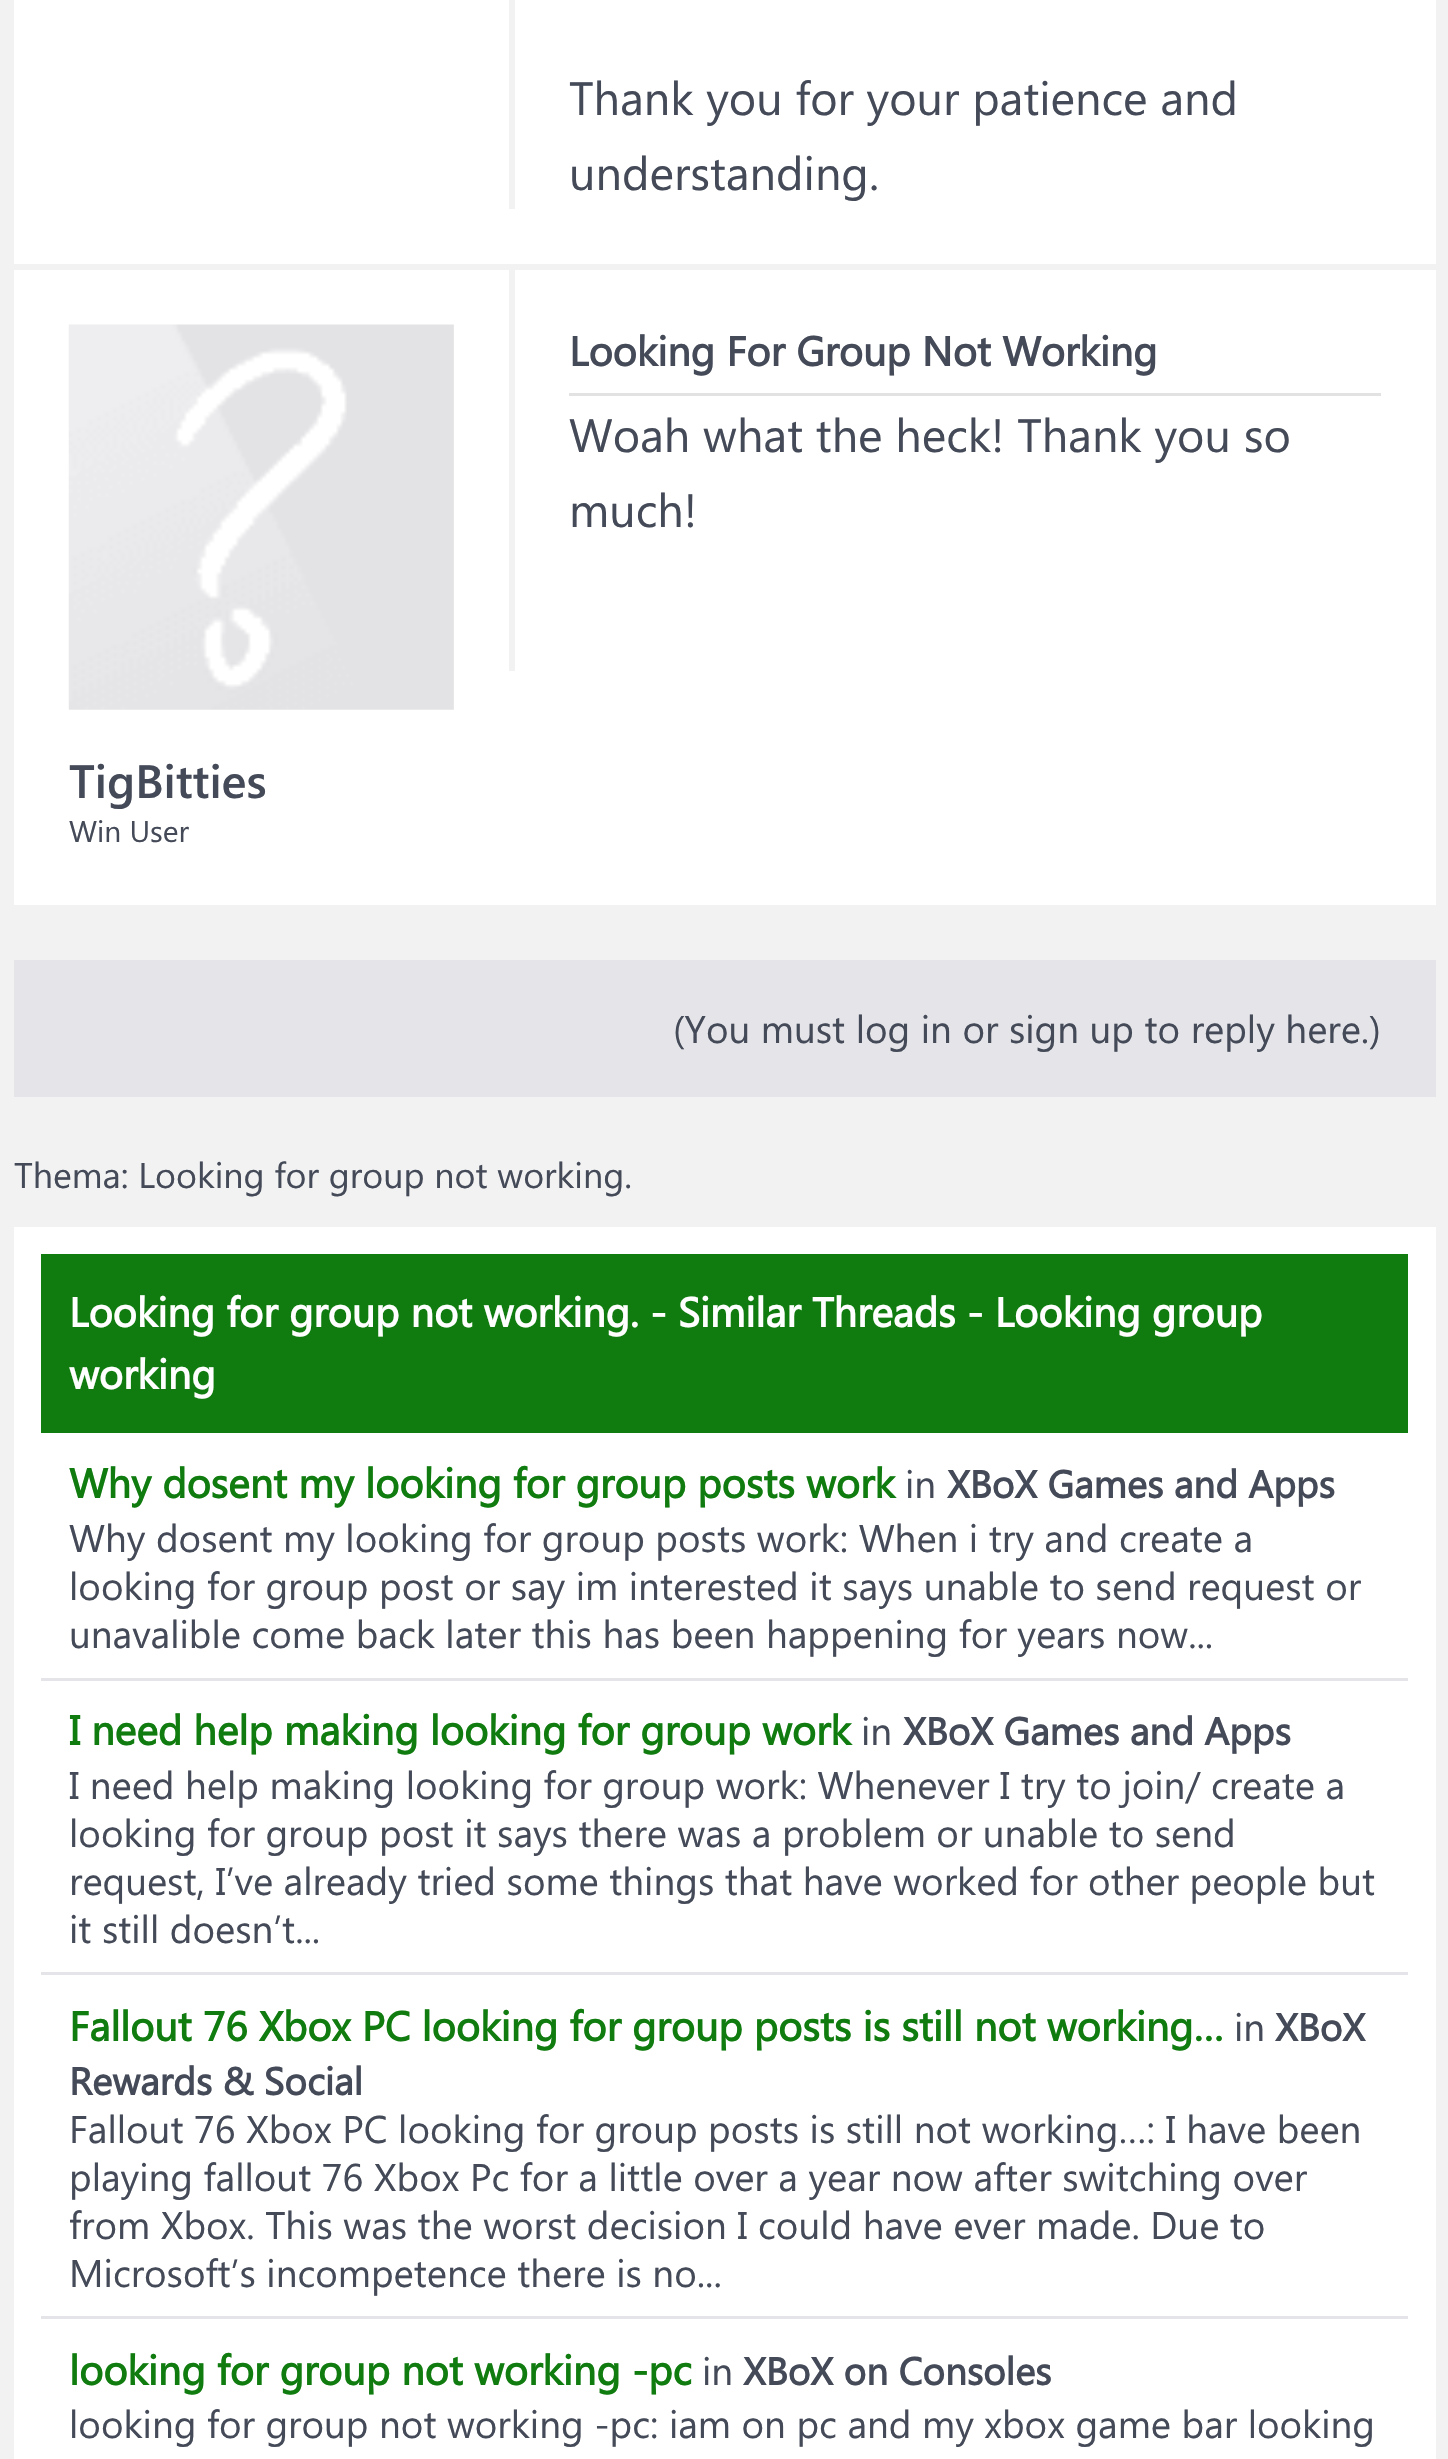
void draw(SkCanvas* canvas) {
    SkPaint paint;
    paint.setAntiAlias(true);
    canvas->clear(0xFFF2F2F3);
    paint.setColor(0xFFFFFFFF);
    canvas->drawRect(SkRect::MakeXYWH(14, 0, 1422, 264), paint);
    paint.setColor(0xFFF2F2F3);
    canvas->drawRect(SkRect::MakeXYWH(509, 0, 6, 209), paint);
    SkFont font1(fontMgr->matchFamilyStyle("Segoe UI", SkFontStyle::Normal()), 46.75f);
    font1.setSubpixel(true);
    paint.setColor(0xFF444A58);
    canvas->drawString("Thank you for your patience and", 569, 115, font1, paint);
    canvas->drawString("understanding.", 569, 190, font1, paint);
    paint.setColor(0xFFFFFFFF);
    canvas->drawRect(SkRect::MakeXYWH(14, 270, 1422, 635), paint);
    paint.setColor(0xFFF2F2F3);
    canvas->drawRect(SkRect::MakeXYWH(509, 270, 6, 401), paint);
    paint.setColor(0xFFE2E2E2);
    canvas->drawRect(SkRect::MakeXYWH(569, 393, 812, 3), paint);
    SkFont font2(fontMgr->matchFamilyStyle("Segoe UI", SkFontStyle::Bold()), 41.25f);
    font2.setSubpixel(true);
    paint.setColor(0xFF444A58);
    canvas->drawString("Looking For Group Not Working", 569, 366, font2, paint);
    canvas->drawString("Woah what the heck! Thank you so", 569, 452, font1, paint);
    canvas->drawString("much!", 569, 527, font1, paint);
    paint.setColor(0xFFF2F2F3);
    canvas->drawRect(SkRect::MakeXYWH(69, 325, 385, 385), paint);
    canvas->drawImageRect(SkImages::DeferredFromEncodedData(SkData::MakeFromFileName("img1.png")), SkRect::MakeXYWH(68, 324, 386, 386), SkSamplingOptions());
    SkFont font3(fontMgr->matchFamilyStyle("Segoe UI", SkFontStyle(600, SkFontStyle::kNormal_Width, SkFontStyle::kUpright_Slant)), 46.75f);
    font3.setSubpixel(true);
    paint.setColor(0xFF444A58);
    canvas->drawString("TigBitties", 69, 798, font3, paint);
    SkFont font4(fontMgr->matchFamilyStyle("Segoe UI", SkFontStyle::Normal()), 30);
    font4.setSubpixel(true);
    canvas->drawString("Win User", 69, 842, font4, paint);
    paint.setColor(0xFFE5E5E9);
    canvas->drawRect(SkRect::MakeXYWH(14, 960, 1422, 137), paint);
    SkFont font5(fontMgr->matchFamilyStyle("Segoe UI", SkFontStyle::Normal()), 38.5f);
    font5.setSubpixel(true);
    paint.setColor(0xFF444A58);
    canvas->drawString("(You must log in or sign up to reply here.)", 673, 1043, font5, paint);
    SkFont font6(fontMgr->matchFamilyStyle("Segoe UI", SkFontStyle::Normal()), 35.75f);
    font6.setSubpixel(true);
    canvas->drawString("Thema: Looking for group not working.", 14, 1188, font6, paint);
    paint.setColor(0xFFFFFFFF);
    canvas->drawRect(SkRect::MakeXYWH(14, 1227, 1422, 1232), paint);
    paint.setColor(0xFF107C0F);
    canvas->drawRect(SkRect::MakeXYWH(41, 1254, 1367, 179), paint);
    paint.setColor(0xFFFFFFFF);
    canvas->drawString("Looking for group not working. - Similar Threads - Looking group", 69, 1327, font2, paint);
    canvas->drawString("working", 69, 1389, font2, paint);
    paint.setColor(0xFFE5E5E9);
    canvas->drawRect(SkRect::MakeXYWH(41, 1678, 1367, 3), paint);
    paint.setColor(0xFF107C0F);
    canvas->drawString("Why dosent my looking for group posts work", 69, 1498, font2, paint);
    paint.setColor(0xFF444A58);
    canvas->drawString("in", 905, 1498, font5, paint);
    SkFont font7(fontMgr->matchFamilyStyle("Segoe UI", SkFontStyle::Bold()), 38.5f);
    font7.setSubpixel(true);
    canvas->drawString("XBoX Games and Apps", 947, 1498, font7, paint);
    canvas->drawString("Why dosent my looking for group posts work: When i try and create a", 69, 1552, font5, paint);
    canvas->drawString("looking for group post or say im interested it says unable to send request or", 69, 1600, font5, paint);
    canvas->drawString("unavalible come back later this has been happening for years now...", 69, 1648, font5, paint);
    paint.setColor(0xFFE5E5E9);
    canvas->drawRect(SkRect::MakeXYWH(41, 1972, 1367, 3), paint);
    paint.setColor(0xFF107C0F);
    canvas->drawString("I need help making looking for group work", 69, 1745, font2, paint);
    paint.setColor(0xFF444A58);
    canvas->drawString("in", 861, 1745, font5, paint);
    canvas->drawString("XBoX Games and Apps", 903, 1745, font7, paint);
    canvas->drawString("I need help making looking for group work: Whenever I try to join/ create a", 69, 1799, font5, paint);
    canvas->drawString("looking for group post it says there was a problem or unable to send", 69, 1847, font5, paint);
    canvas->drawString("request, I’ve already tried some things that have worked for other people but", 69, 1895, font5, paint);
    canvas->drawString("it still doesn’t...", 69, 1943, font5, paint);
    paint.setColor(0xFFE5E5E9);
    canvas->drawRect(SkRect::MakeXYWH(41, 2316, 1367, 3), paint);
    paint.setColor(0xFF107C0F);
    canvas->drawString("Fallout 76 Xbox PC looking for group posts is still not working…", 69, 2041, font2, paint);
    paint.setColor(0xFF444A58);
    canvas->drawString("in", 1234, 2041, font5, paint);
    canvas->drawString("XBoX", 1275, 2041, font7, paint);
    canvas->drawString("Rewards & Social", 69, 2095, font7, paint);
    canvas->drawString("Fallout 76 Xbox PC looking for group posts is still not working…: I have been", 69, 2143, font5, paint);
    canvas->drawString("playing fallout 76 Xbox Pc for a little over a year now after switching over", 69, 2191, font5, paint);
    canvas->drawString("from Xbox. This was the worst decision I could have ever made. Due to", 69, 2239, font5, paint);
    canvas->drawString("Microsoft’s incompetence there is no...", 69, 2287, font5, paint);
    paint.setColor(0xFF107C0F);
    canvas->drawString("looking for group not working -pc", 69, 2385, font2, paint);
    paint.setColor(0xFF444A58);
    canvas->drawString("in", 702, 2385, font5, paint);
    canvas->drawString("XBoX on Consoles", 743, 2385, font7, paint);
    canvas->drawString("looking for group not working -pc: iam on pc and my xbox game bar looking", 69, 2438, font5, paint);
}
